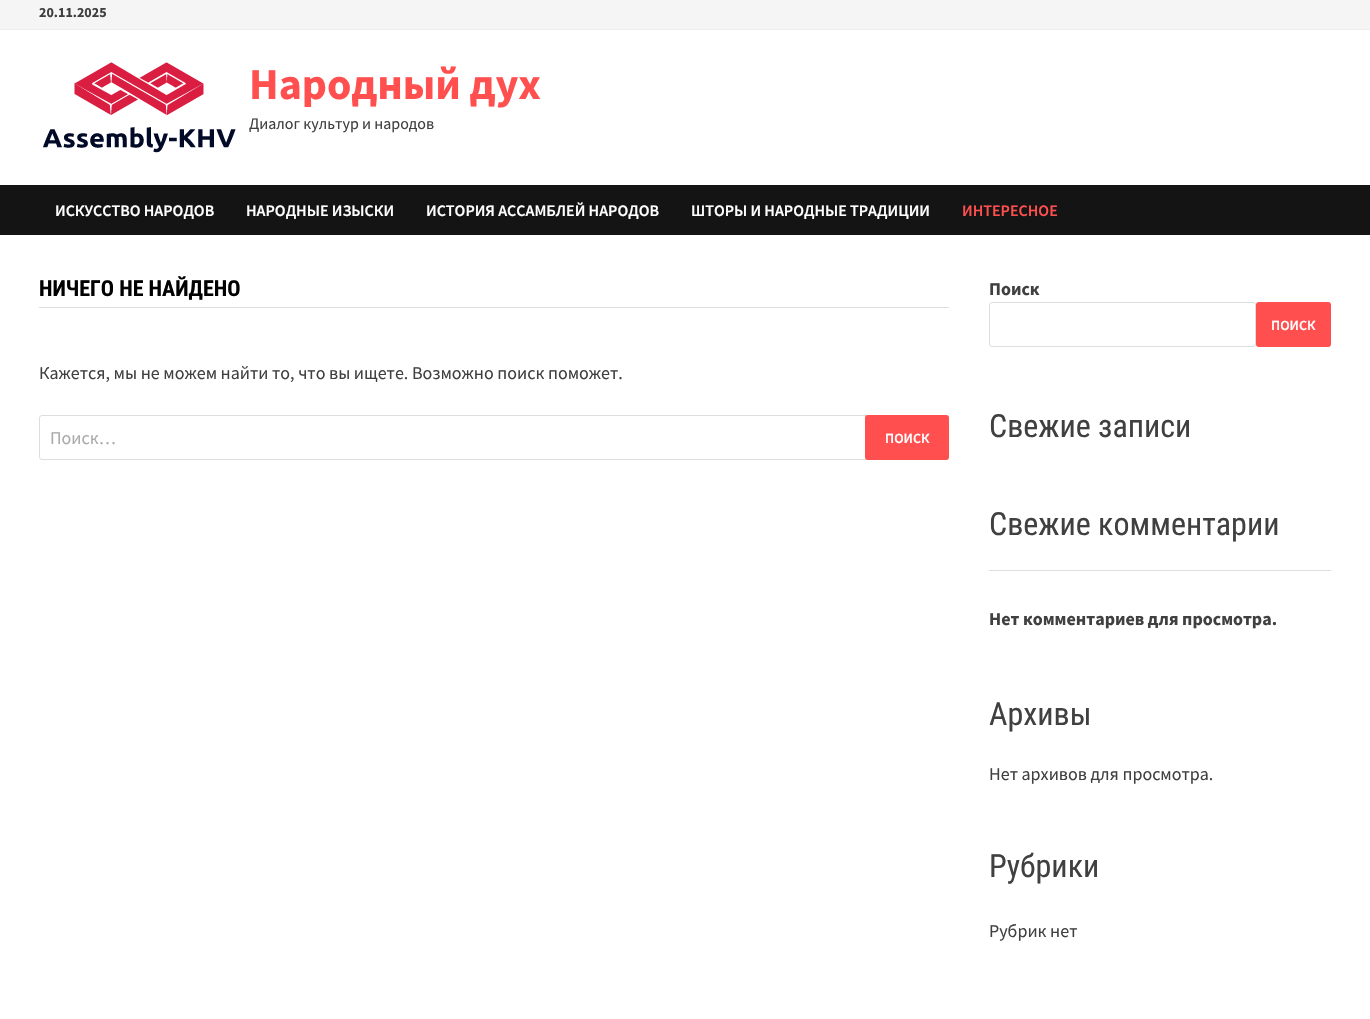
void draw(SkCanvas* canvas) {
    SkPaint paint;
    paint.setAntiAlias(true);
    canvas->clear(0xFFFFFFFF);
    paint.setColor(0xFFF5F5F5);
    canvas->drawRect(SkRect::MakeXYWH(0, 0, 1370, 29), paint);
    paint.setColor(0xFFEEEEEE);
    canvas->drawRect(SkRect::MakeXYWH(0, 29, 1370, 1), paint);
    SkFont font1(fontMgr->matchFamilyStyle("Source Sans Pro", SkFontStyle::Bold()), 14);
    font1.setSubpixel(true);
    paint.setColor(0xFF404040);
    canvas->drawString("20.11.2025", 39, 17, font1, paint);
    canvas->drawImageRect(SkImages::DeferredFromEncodedData(SkData::MakeFromFileName("img1.png")), SkRect::MakeXYWH(43, 62, 193, 91), SkSamplingOptions());
    SkFont font2(fontMgr->matchFamilyStyle("Source Sans Pro", SkFontStyle::Bold()), 44);
    font2.setSubpixel(true);
    paint.setColor(0xFFFF4F4F);
    canvas->drawString("Народный дух", 249, 99, font2, paint);
    SkFont font3(fontMgr->matchFamilyStyle("Source Sans Pro", SkFontStyle::Normal()), 16);
    font3.setSubpixel(true);
    paint.setColor(0xFF404040);
    canvas->drawString("Диалог культур и народов", 249, 129, font3, paint);
    paint.setColor(0xFF141414);
    canvas->drawRect(SkRect::MakeXYWH(0, 185, 1370, 50), paint);
    SkFont font4(fontMgr->matchFamilyStyle("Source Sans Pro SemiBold", SkFontStyle(600, SkFontStyle::kNormal_Width, SkFontStyle::kUpright_Slant)), 16);
    font4.setSubpixel(true);
    paint.setColor(0xFFFFFFFF);
    canvas->drawString("ИСКУССТВО НАРОДОВ", 55, 216, font4, paint);
    canvas->drawString("НАРОДНЫЕ ИЗЫСКИ", 246, 216, font4, paint);
    canvas->drawString("ИСТОРИЯ АССАМБЛЕЙ НАРОДОВ", 426, 216, font4, paint);
    canvas->drawString("ШТОРЫ И НАРОДНЫЕ ТРАДИЦИИ", 691, 216, font4, paint);
    paint.setColor(0xFFFF4F4F);
    canvas->drawString("ИНТЕРЕСНОЕ", 962, 216, font4, paint);
    paint.setColor(0xFFDDDDDD);
    canvas->drawRect(SkRect::MakeXYWH(39, 307, 910, 1), paint);
    SkFont font5(fontMgr->matchFamilyStyle("Roboto Condensed", SkFontStyle::Bold()), 22);
    font5.setSubpixel(true);
    paint.setColor(0xFF000000);
    canvas->drawString("НИЧЕГО НЕ НАЙДЕНО", 39, 296, font5, paint);
    SkFont font6(fontMgr->matchFamilyStyle("Source Sans Pro", SkFontStyle::Normal()), 18);
    font6.setSubpixel(true);
    paint.setColor(0xFF404040);
    canvas->drawString("Кажется, мы не можем найти то, что вы ищете. Возможно поиск поможет.", 39, 379, font6, paint);
    paint.setStyle(SkPaint::kStroke_Style);
    paint.setStrokeWidth(1);
    paint.setColor(0xFFDDDDDD);
    canvas->drawRoundRect(SkRect::MakeXYWH(39.5f, 415.5f, 909, 44), 2.5f, 2.5f, paint);
    paint.setStyle(SkPaint::kFill_Style);
    paint.setColor(0xFFAAAAAA);
    canvas->drawString("Поиск…", 50, 444, font6, paint);
    paint.setColor(0xFFFF4F4F);
    canvas->drawRoundRect(SkRect::MakeXYWH(865, 415, 84, 45), 3, 3, paint);
    SkFont font7(fontMgr->matchFamilyStyle("Source Sans Pro SemiBold", SkFontStyle(600, SkFontStyle::kNormal_Width, SkFontStyle::kUpright_Slant)), 14);
    font7.setSubpixel(true);
    paint.setColor(0xFFFFFFFF);
    canvas->drawString("ПОИСК", 885, 443, font7, paint);
    SkFont font8(fontMgr->matchFamilyStyle("Source Sans Pro", SkFontStyle::Bold()), 18);
    font8.setSubpixel(true);
    paint.setColor(0xFF404040);
    canvas->drawString("Поиск", 989, 295, font8, paint);
    paint.setStyle(SkPaint::kStroke_Style);
    paint.setColor(0xFFDDDDDD);
    canvas->drawRoundRect(SkRect::MakeXYWH(989.5f, 302.5f, 266, 44), 2.5f, 2.5f, paint);
    paint.setStyle(SkPaint::kFill_Style);
    paint.setColor(0xFFFF4F4F);
    canvas->drawRoundRect(SkRect::MakeXYWH(1256, 302, 75, 45), 3, 3, paint);
    paint.setColor(0xFFFFFFFF);
    canvas->drawString("ПОИСК", 1271, 330, font7, paint);
    SkFont font9(fontMgr->matchFamilyStyle("Roboto Condensed", SkFontStyle::Normal()), 32);
    font9.setSubpixel(true);
    paint.setColor(0xFF404040);
    canvas->drawString("Свежие записи", 989, 437, font9, paint);
    canvas->drawString("Свежие комментарии", 989, 535, font9, paint);
    paint.setColor(0xFFDDDDDD);
    canvas->drawRect(SkRect::MakeXYWH(989, 570, 342, 1), paint);
    paint.setColor(0xFF404040);
    canvas->drawString("Нет комментариев для просмотра.", 989, 625, font8, paint);
    canvas->drawString("Архивы", 989, 725, font9, paint);
    canvas->drawString("Нет архивов для просмотра.", 989, 780, font6, paint);
    canvas->drawString("Рубрики", 989, 877, font9, paint);
    canvas->drawString("Рубрик нет", 989, 937, font6, paint);
}
